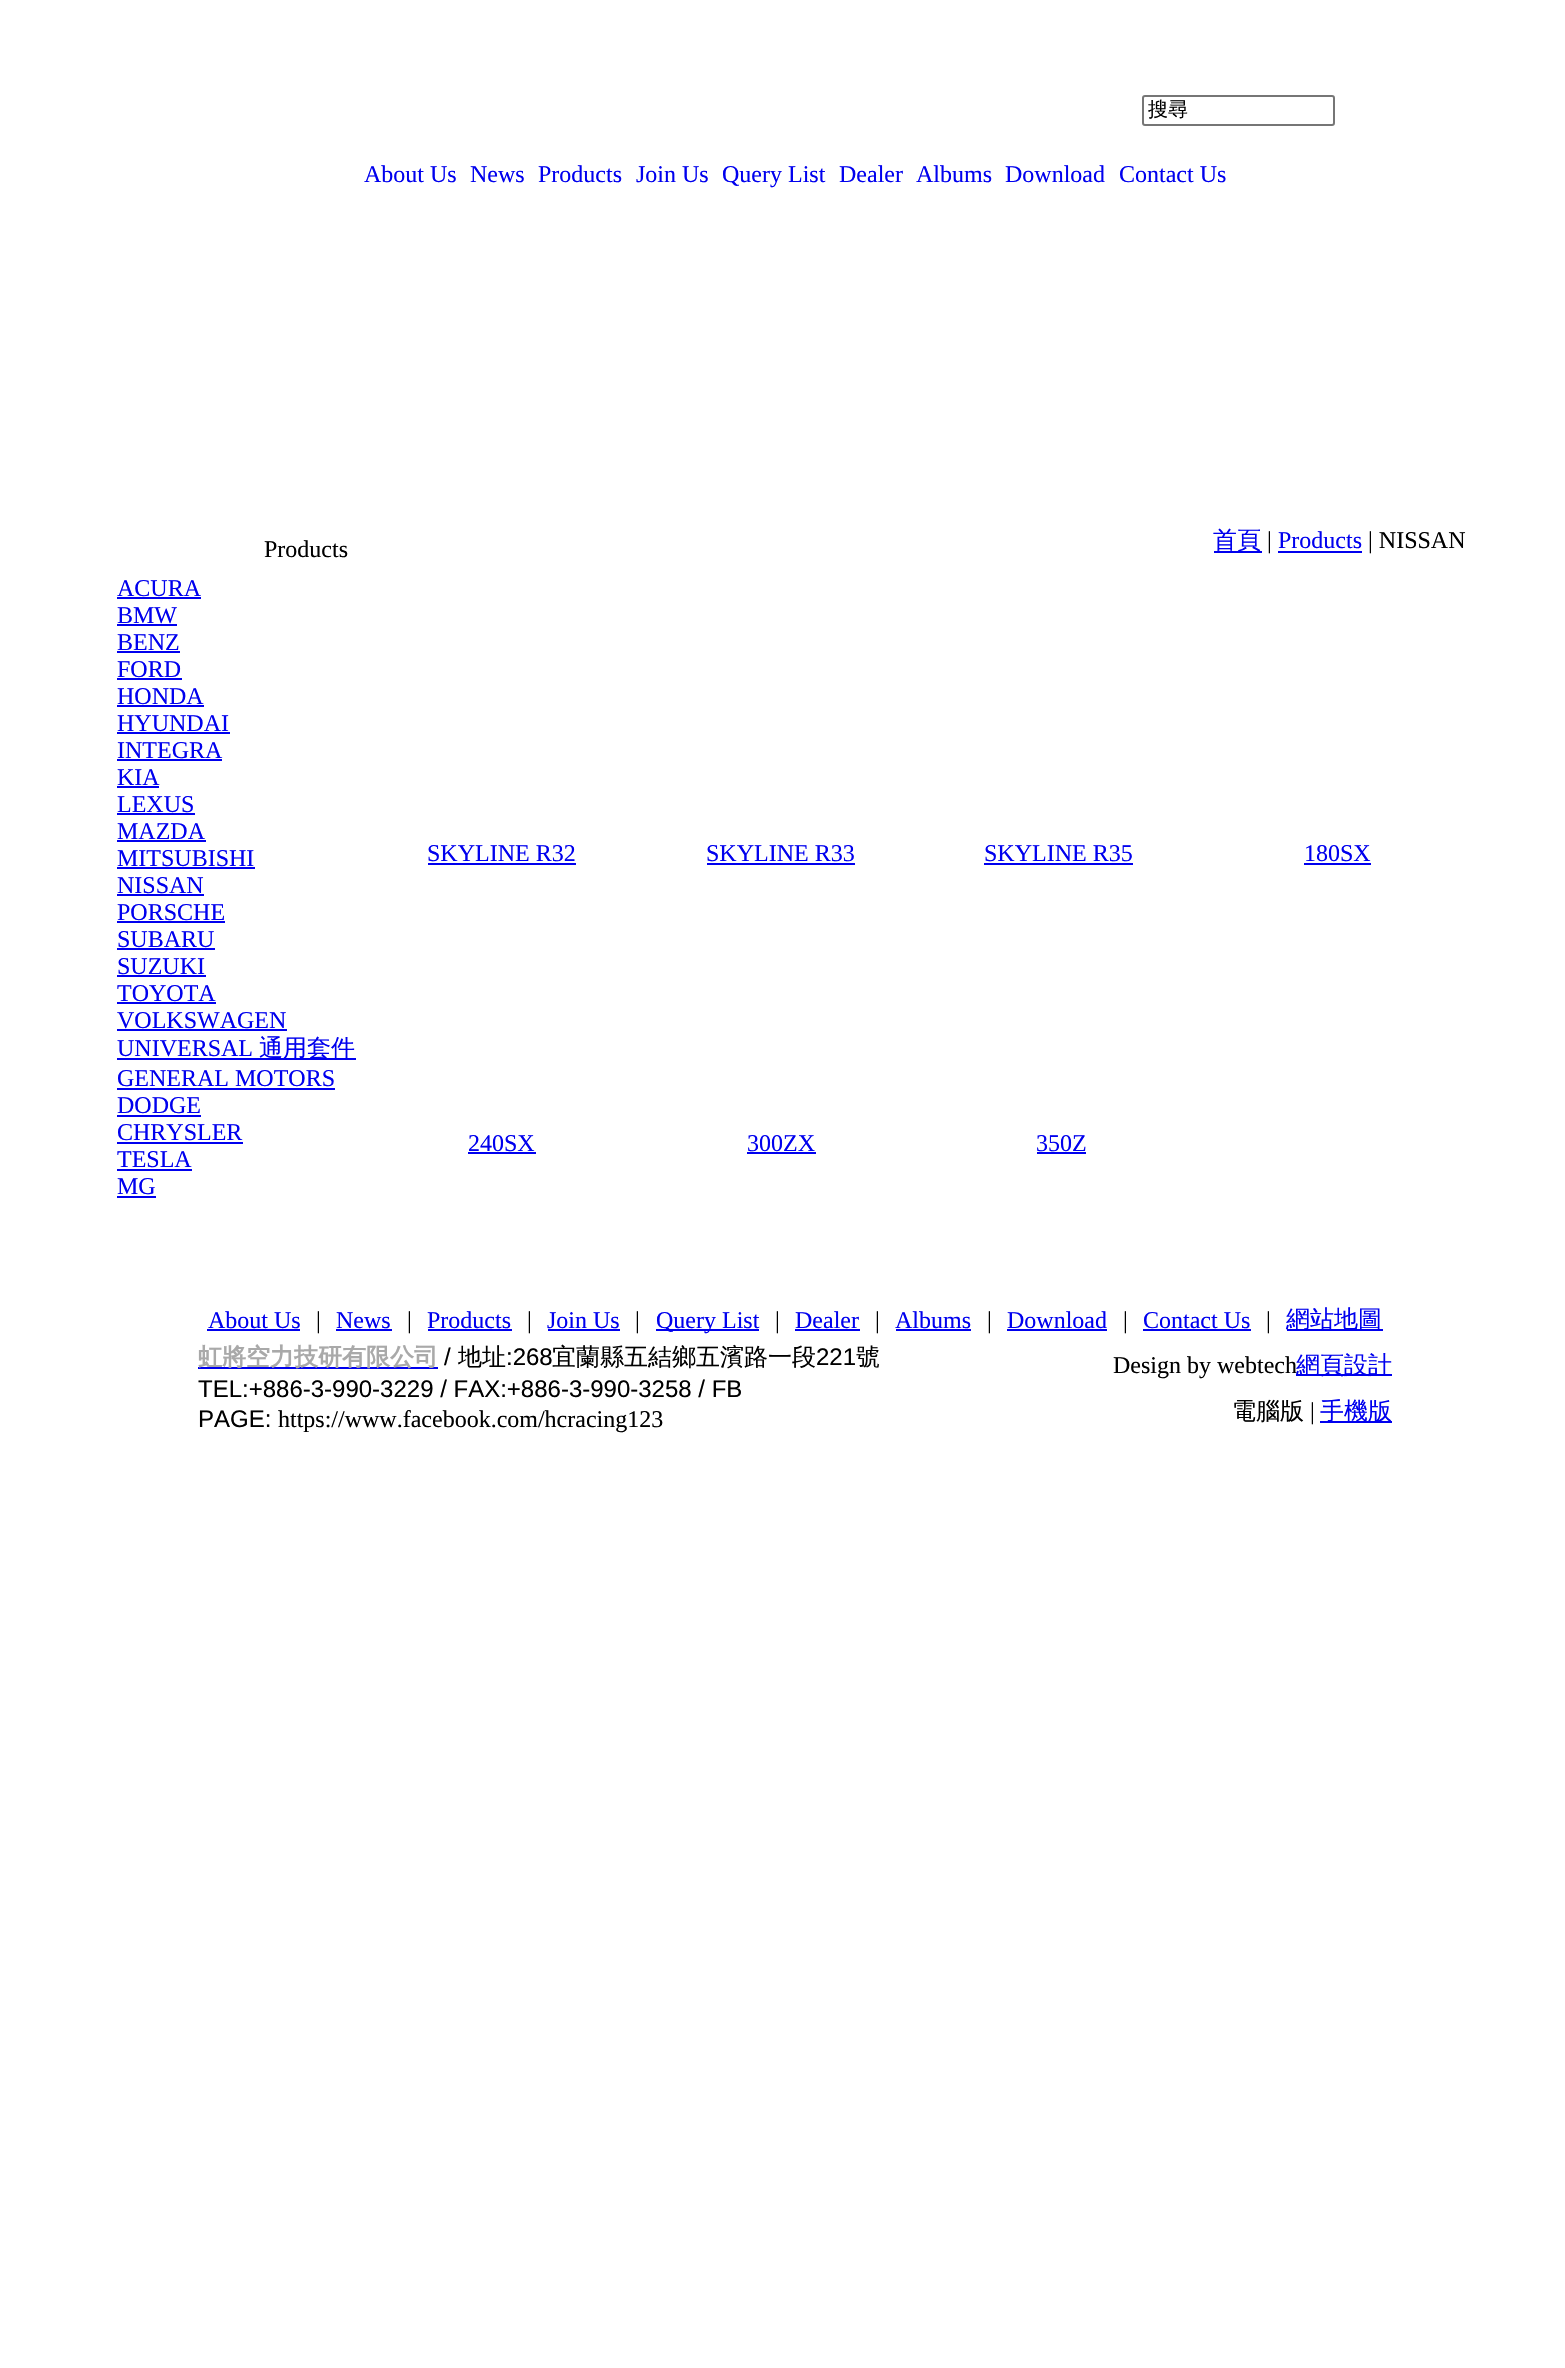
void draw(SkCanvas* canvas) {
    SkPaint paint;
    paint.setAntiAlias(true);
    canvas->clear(0xFFFFFFFF);
    paint.setStyle(SkPaint::kStroke_Style);
    paint.setStrokeWidth(2);
    paint.setColor(0xFF767676);
    canvas->drawRoundRect(SkRect::MakeXYWH(1143, 96, 191, 29), 2, 2, paint);
    SkFont font1(fontMgr->matchFamilyStyle("WenQuanYi Zen Hei", SkFontStyle(500, SkFontStyle::kNormal_Width, SkFontStyle::kUpright_Slant)), 20);
    font1.setSubpixel(true);
    paint.setStyle(SkPaint::kFill_Style);
    paint.setColor(0xFF000000);
    canvas->drawString("搜尋", 1148, 116, font1, paint);
    SkFont font2(fontMgr->matchFamilyStyle("Liberation Serif", SkFontStyle::Normal()), 24);
    font2.setSubpixel(true);
    paint.setColor(0xFF0000EE);
    canvas->drawString("About Us", 364, 182, font2, paint);
    canvas->drawString("News", 470, 182, font2, paint);
    canvas->drawString("Products", 538, 182, font2, paint);
    canvas->drawString("Join Us", 636, 182, font2, paint);
    canvas->drawString("Query List", 722, 182, font2, paint);
    canvas->drawString("Dealer", 839, 182, font2, paint);
    canvas->drawString("Albums", 916, 182, font2, paint);
    canvas->drawString("Download", 1005, 182, font2, paint);
    canvas->drawString("Contact Us", 1119, 182, font2, paint);
    paint.setColor(0xFF000000);
    canvas->drawString("Products", 264, 557, font2, paint);
    paint.setColor(0xFF0000EE);
    canvas->drawRect(SkRect::MakeXYWH(1214, 551, 48, 2), paint);
    SkFont font3(fontMgr->matchFamilyStyle("WenQuanYi Zen Hei", SkFontStyle(500, SkFontStyle::kNormal_Width, SkFontStyle::kUpright_Slant)), 24);
    font3.setSubpixel(true);
    canvas->drawString("首頁", 1213, 548, font3, paint);
    paint.setColor(0xFF000000);
    canvas->drawString("|", 1267, 548, font2, paint);
    paint.setColor(0xFF0000EE);
    canvas->drawString("Products", 1278, 548, font2, paint);
    canvas->drawRect(SkRect::MakeXYWH(1278, 551, 84, 2), paint);
    paint.setColor(0xFF000000);
    canvas->drawString("| NISSAN", 1368, 548, font2, paint);
    paint.setColor(0xFF0000EE);
    canvas->drawString("ACURA", 117, 596, font2, paint);
    canvas->drawRect(SkRect::MakeXYWH(117, 597, 84, 2), paint);
    canvas->drawString("BMW", 117, 623, font2, paint);
    canvas->drawRect(SkRect::MakeXYWH(117, 624, 60, 2), paint);
    canvas->drawString("BENZ", 117, 650, font2, paint);
    canvas->drawRect(SkRect::MakeXYWH(117, 651, 63, 2), paint);
    canvas->drawString("FORD", 117, 677, font2, paint);
    canvas->drawRect(SkRect::MakeXYWH(117, 678, 65, 2), paint);
    canvas->drawString("HONDA", 117, 704, font2, paint);
    canvas->drawRect(SkRect::MakeXYWH(117, 705, 87, 2), paint);
    canvas->drawString("HYUNDAI", 117, 731, font2, paint);
    canvas->drawRect(SkRect::MakeXYWH(117, 732, 113, 2), paint);
    canvas->drawString("INTEGRA", 117, 758, font2, paint);
    canvas->drawRect(SkRect::MakeXYWH(117, 759, 105, 2), paint);
    canvas->drawString("KIA", 117, 785, font2, paint);
    canvas->drawRect(SkRect::MakeXYWH(117, 786, 42, 2), paint);
    canvas->drawString("LEXUS", 117, 812, font2, paint);
    canvas->drawRect(SkRect::MakeXYWH(117, 813, 78, 2), paint);
    canvas->drawString("MAZDA", 117, 839, font2, paint);
    canvas->drawRect(SkRect::MakeXYWH(117, 840, 89, 2), paint);
    canvas->drawString("MITSUBISHI", 117, 866, font2, paint);
    canvas->drawRect(SkRect::MakeXYWH(117, 867, 138, 2), paint);
    canvas->drawString("NISSAN", 117, 893, font2, paint);
    canvas->drawRect(SkRect::MakeXYWH(117, 894, 87, 2), paint);
    canvas->drawString("PORSCHE", 117, 920, font2, paint);
    canvas->drawRect(SkRect::MakeXYWH(117, 921, 108, 2), paint);
    canvas->drawString("SUBARU", 117, 947, font2, paint);
    canvas->drawRect(SkRect::MakeXYWH(117, 948, 98, 2), paint);
    canvas->drawString("SUZUKI", 117, 974, font2, paint);
    canvas->drawRect(SkRect::MakeXYWH(117, 975, 89, 2), paint);
    canvas->drawString("TOYOTA", 117, 1001, font2, paint);
    canvas->drawRect(SkRect::MakeXYWH(117, 1002, 99, 2), paint);
    canvas->drawString("VOLKSWAGEN", 117, 1028, font2, paint);
    canvas->drawRect(SkRect::MakeXYWH(117, 1029, 170, 2), paint);
    canvas->drawString("UNIVERSAL", 117, 1056, font2, paint);
    canvas->drawRect(SkRect::MakeXYWH(117, 1058, 239, 2), paint);
    canvas->drawString("通用套件", 259, 1056, font3, paint);
    canvas->drawString("GENERAL MOTORS", 117, 1086, font2, paint);
    canvas->drawRect(SkRect::MakeXYWH(117, 1088, 218, 2), paint);
    canvas->drawString("DODGE", 117, 1113, font2, paint);
    canvas->drawRect(SkRect::MakeXYWH(117, 1115, 84, 2), paint);
    canvas->drawString("CHRYSLER", 117, 1140, font2, paint);
    canvas->drawRect(SkRect::MakeXYWH(117, 1142, 126, 2), paint);
    canvas->drawString("TESLA", 117, 1167, font2, paint);
    canvas->drawRect(SkRect::MakeXYWH(117, 1169, 75, 2), paint);
    canvas->drawString("MG", 117, 1194, font2, paint);
    canvas->drawRect(SkRect::MakeXYWH(117, 1196, 39, 2), paint);
    canvas->drawString("SKYLINE R32", 427, 861, font2, paint);
    canvas->drawRect(SkRect::MakeXYWH(428, 863, 148, 2), paint);
    canvas->drawString("SKYLINE R33", 706, 861, font2, paint);
    canvas->drawRect(SkRect::MakeXYWH(707, 863, 148, 2), paint);
    canvas->drawString("SKYLINE R35", 984, 861, font2, paint);
    canvas->drawRect(SkRect::MakeXYWH(984, 863, 149, 2), paint);
    canvas->drawString("180SX", 1304, 861, font2, paint);
    canvas->drawRect(SkRect::MakeXYWH(1304, 863, 67, 2), paint);
    canvas->drawString("240SX", 468, 1151, font2, paint);
    canvas->drawRect(SkRect::MakeXYWH(468, 1152, 68, 2), paint);
    canvas->drawString("300ZX", 747, 1151, font2, paint);
    canvas->drawRect(SkRect::MakeXYWH(747, 1152, 69, 2), paint);
    canvas->drawString("350Z", 1036, 1151, font2, paint);
    canvas->drawRect(SkRect::MakeXYWH(1037, 1152, 49, 2), paint);
    canvas->drawString("About Us", 208, 1328, font2, paint);
    canvas->drawRect(SkRect::MakeXYWH(207, 1329, 93, 2), paint);
    paint.setColor(0xFF000000);
    canvas->drawString("|", 316, 1328, font2, paint);
    paint.setColor(0xFF0000EE);
    canvas->drawString("News", 336, 1328, font2, paint);
    canvas->drawRect(SkRect::MakeXYWH(336, 1329, 56, 2), paint);
    paint.setColor(0xFF000000);
    canvas->drawString("|", 407, 1328, font2, paint);
    paint.setColor(0xFF0000EE);
    canvas->drawString("Products", 427, 1328, font2, paint);
    canvas->drawRect(SkRect::MakeXYWH(428, 1329, 84, 2), paint);
    paint.setColor(0xFF000000);
    canvas->drawString("|", 527, 1328, font2, paint);
    paint.setColor(0xFF0000EE);
    canvas->drawString("Join Us", 547, 1328, font2, paint);
    canvas->drawRect(SkRect::MakeXYWH(548, 1329, 72, 2), paint);
    paint.setColor(0xFF000000);
    canvas->drawString("|", 635, 1328, font2, paint);
    paint.setColor(0xFF0000EE);
    canvas->drawRect(SkRect::MakeXYWH(656, 1329, 103, 2), paint);
    canvas->drawString("Query List", 656, 1328, font2, paint);
    paint.setColor(0xFF000000);
    canvas->drawString("|", 775, 1328, font2, paint);
    paint.setColor(0xFF0000EE);
    canvas->drawString("Dealer", 795, 1328, font2, paint);
    canvas->drawRect(SkRect::MakeXYWH(795, 1329, 65, 2), paint);
    paint.setColor(0xFF000000);
    canvas->drawString("|", 875, 1328, font2, paint);
    paint.setColor(0xFF0000EE);
    canvas->drawString("Albums", 895, 1328, font2, paint);
    canvas->drawRect(SkRect::MakeXYWH(896, 1329, 75, 2), paint);
    paint.setColor(0xFF000000);
    canvas->drawString("|", 987, 1328, font2, paint);
    paint.setColor(0xFF0000EE);
    canvas->drawString("Download", 1007, 1328, font2, paint);
    canvas->drawRect(SkRect::MakeXYWH(1007, 1329, 100, 2), paint);
    paint.setColor(0xFF000000);
    canvas->drawString("|", 1123, 1328, font2, paint);
    paint.setColor(0xFF0000EE);
    canvas->drawString("Contact Us", 1143, 1328, font2, paint);
    canvas->drawRect(SkRect::MakeXYWH(1143, 1329, 108, 2), paint);
    paint.setColor(0xFF000000);
    canvas->drawString("|", 1266, 1328, font2, paint);
    paint.setColor(0xFF0000EE);
    canvas->drawRect(SkRect::MakeXYWH(1287, 1329, 96, 2), paint);
    canvas->drawString("網站地圖", 1286, 1327, font3, paint);
    canvas->drawRect(SkRect::MakeXYWH(198, 1367, 240, 2), paint);
    SkFont font4(fontMgr->matchFamilyStyle("WenQuanYi Zen Hei", SkFontStyle::Bold()), 24);
    font4.setSubpixel(true);
    paint.setColor(0xFFA9A9A9);
    canvas->drawString("虹將空力技研有限公司", 198, 1365, font4, paint);
    SkFont font5(fontMgr->matchFamilyStyle("Liberation Sans", SkFontStyle::Normal()), 24);
    font5.setSubpixel(true);
    paint.setColor(0xFF000000);
    canvas->drawString("/", 444, 1365, font5, paint);
    canvas->drawString("地址", 458, 1365, font3, paint);
    canvas->drawString(":268", 506, 1365, font5, paint);
    canvas->drawString("宜蘭縣五結鄉五濱路一段", 552, 1365, font3, paint);
    canvas->drawString("221", 816, 1365, font5, paint);
    canvas->drawString("號", 856, 1365, font3, paint);
    canvas->drawString("TEL:+886-3-990-3229 / FAX:+886-3-990-3258 / FB", 198, 1397, font5, paint);
    canvas->drawString("PAGE:", 198, 1427, font5, paint);
    canvas->drawString("https://www.facebook.com/hcracing123", 278, 1427, font2, paint);
    canvas->drawString("Design by webtech", 1113, 1373, font2, paint);
    paint.setColor(0xFF0000EE);
    canvas->drawRect(SkRect::MakeXYWH(1296, 1374, 96, 2), paint);
    canvas->drawString("網頁設計", 1296, 1373, font3, paint);
    paint.setColor(0xFF000000);
    canvas->drawString("電腦版", 1232, 1419, font3, paint);
    canvas->drawString("|", 1310, 1419, font2, paint);
    paint.setColor(0xFF0000EE);
    canvas->drawRect(SkRect::MakeXYWH(1320, 1421, 72, 2), paint);
    canvas->drawString("手機版", 1320, 1419, font3, paint);
}
